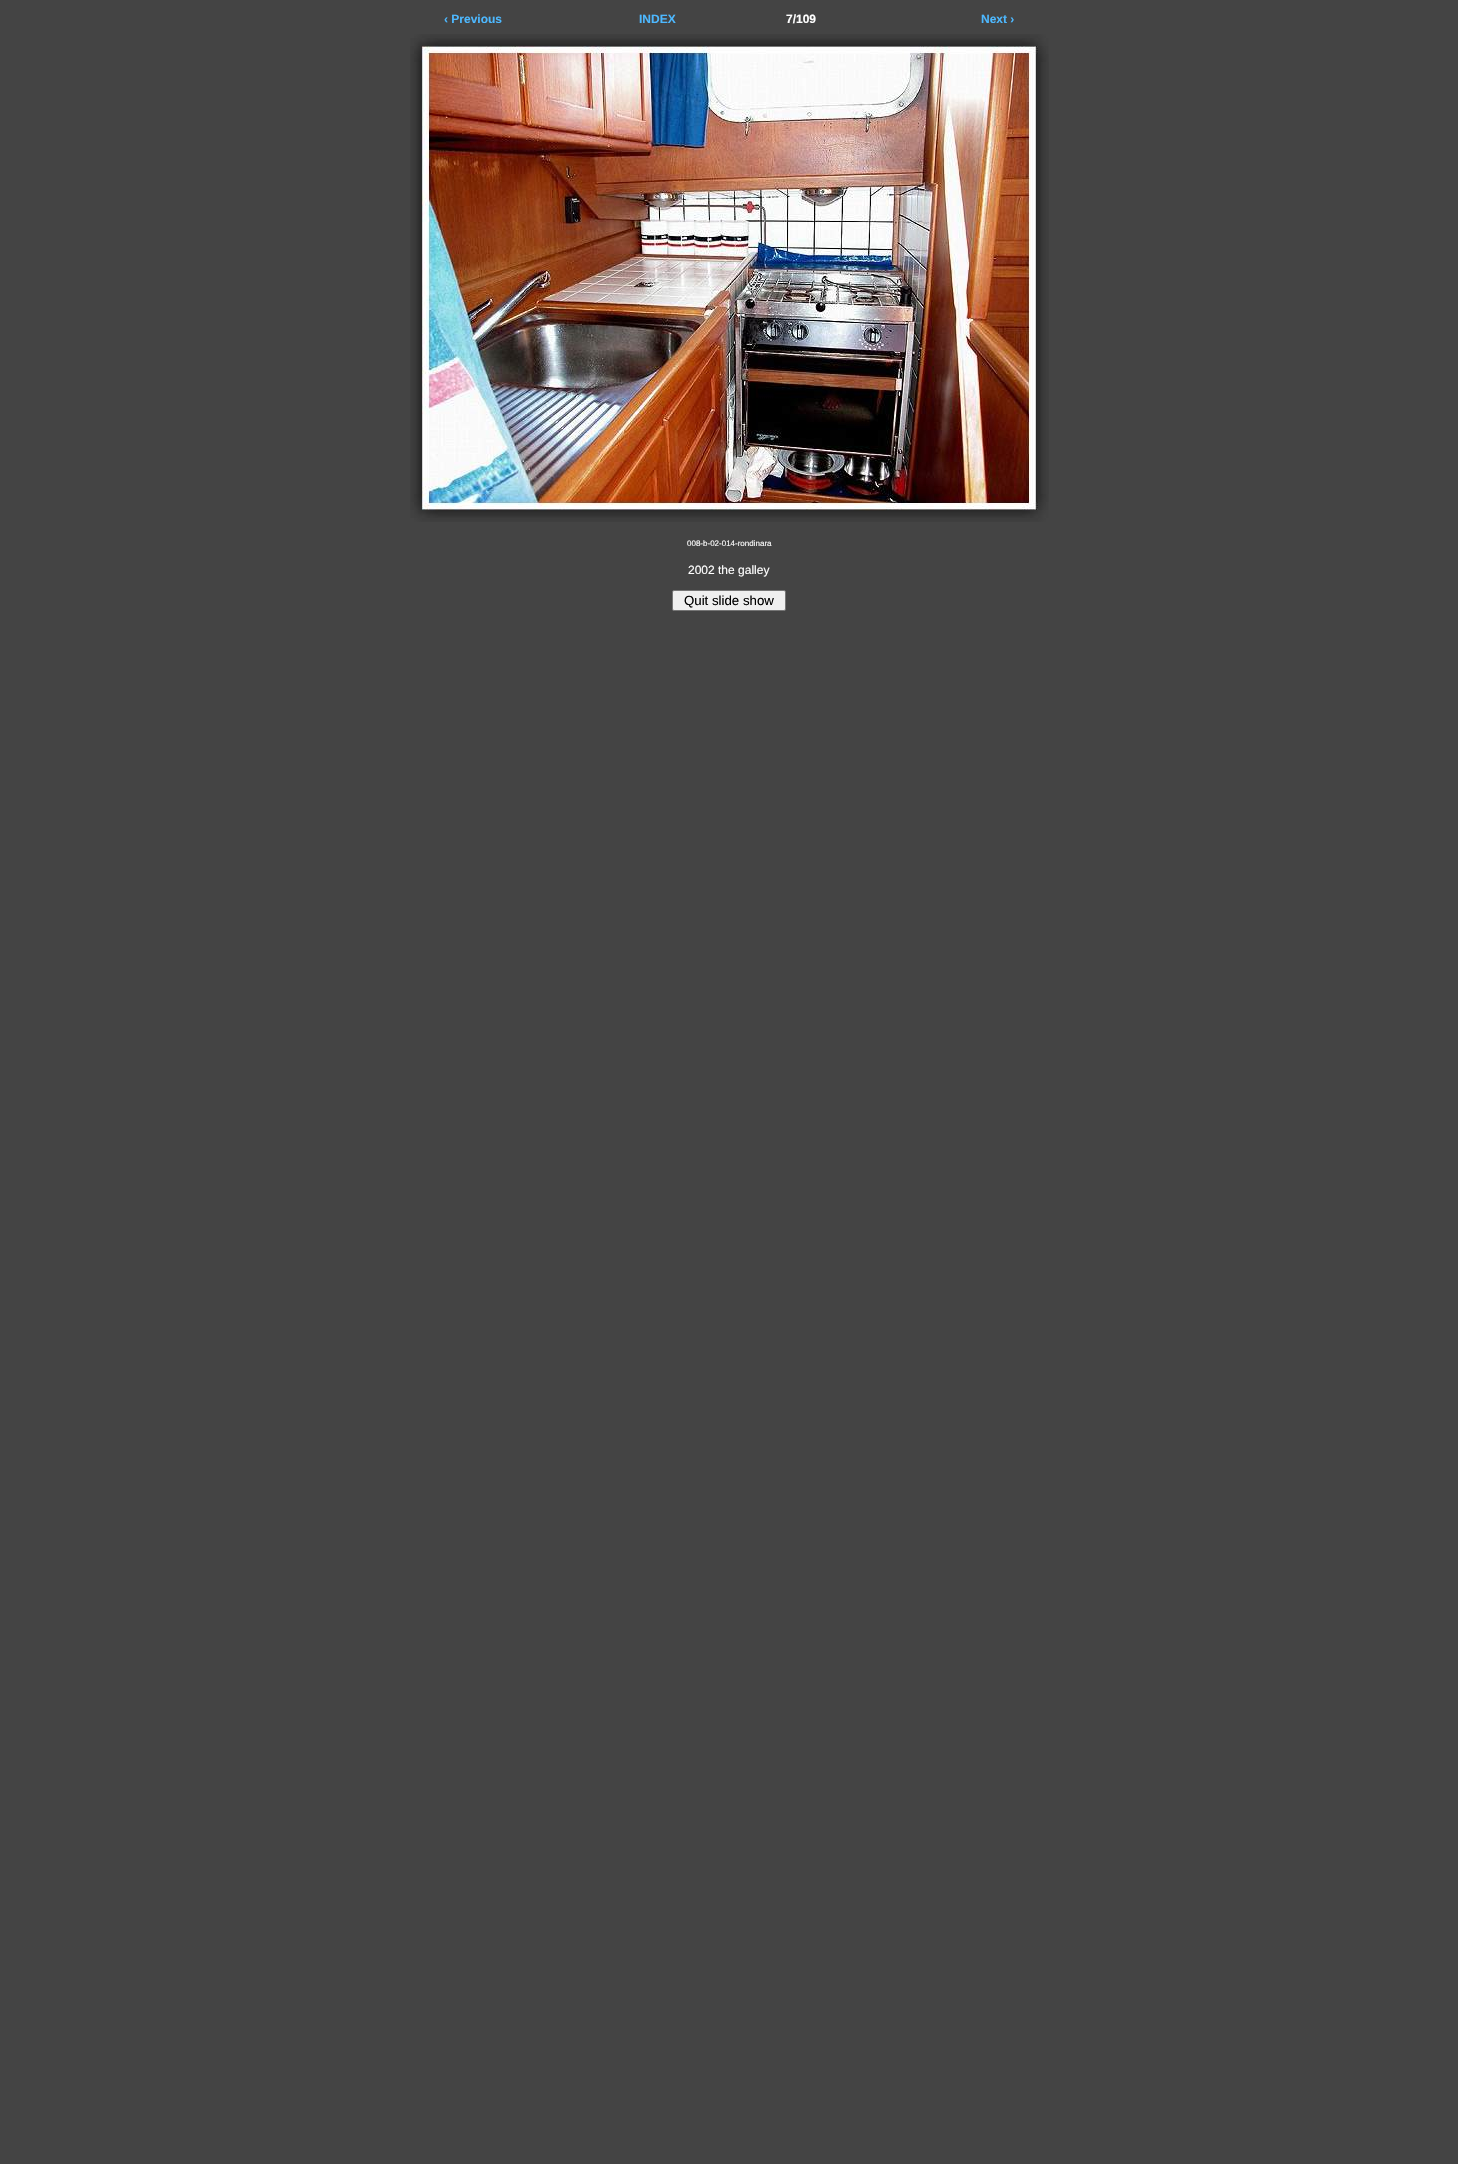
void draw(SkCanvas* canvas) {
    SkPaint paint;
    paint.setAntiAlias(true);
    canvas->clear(0xFF444444);
    SkFont font1(fontMgr->matchFamilyStyle("Liberation Sans", SkFontStyle::Bold()), 12);
    font1.setSubpixel(true);
    paint.setColor(0xFF4DB8FF);
    canvas->drawString("‹ Previous", 444, 23, font1, paint);
    canvas->drawString("INDEX", 639, 23, font1, paint);
    paint.setColor(0xFFFFFFFF);
    canvas->drawString("7/109", 786, 23, font1, paint);
    paint.setColor(0xFF4DB8FF);
    canvas->drawString("Next ›", 981, 23, font1, paint);
    canvas->drawImageRect(SkImages::DeferredFromEncodedData(SkData::MakeFromFileName("img1.png")), SkRect::MakeXYWH(410, 34, 639, 488), SkSamplingOptions());
    SkFont font2(fontMgr->matchFamilyStyle("Liberation Sans", SkFontStyle::Normal()), 8);
    font2.setSubpixel(true);
    paint.setColor(0xFFFFFFFF);
    canvas->drawString("008-b-02-014-rondinara", 687, 546, font2, paint);
    SkFont font3(fontMgr->matchFamilyStyle("Liberation Sans", SkFontStyle::Normal()), 12);
    font3.setSubpixel(true);
    canvas->drawString("2002 the galley", 688, 574, font3, paint);
    paint.setColor(0xFFEFEFEF);
    canvas->drawRoundRect(SkRect::MakeXYWH(672.5f, 590.5f, 113, 20), 1.5f, 1.5f, paint);
    paint.setStyle(SkPaint::kStroke_Style);
    paint.setStrokeWidth(1);
    paint.setColor(0xFF767676);
    canvas->drawRoundRect(SkRect::MakeXYWH(672.5f, 590.5f, 113, 20), 1.5f, 1.5f, paint);
    SkFont font4(fontMgr->matchFamilyStyle("Liberation Sans", SkFontStyle::Normal()), 13.25f);
    font4.setSubpixel(true);
    paint.setStyle(SkPaint::kFill_Style);
    paint.setColor(0xFF000000);
    canvas->drawString("Quit slide show", 684, 605, font4, paint);
}
